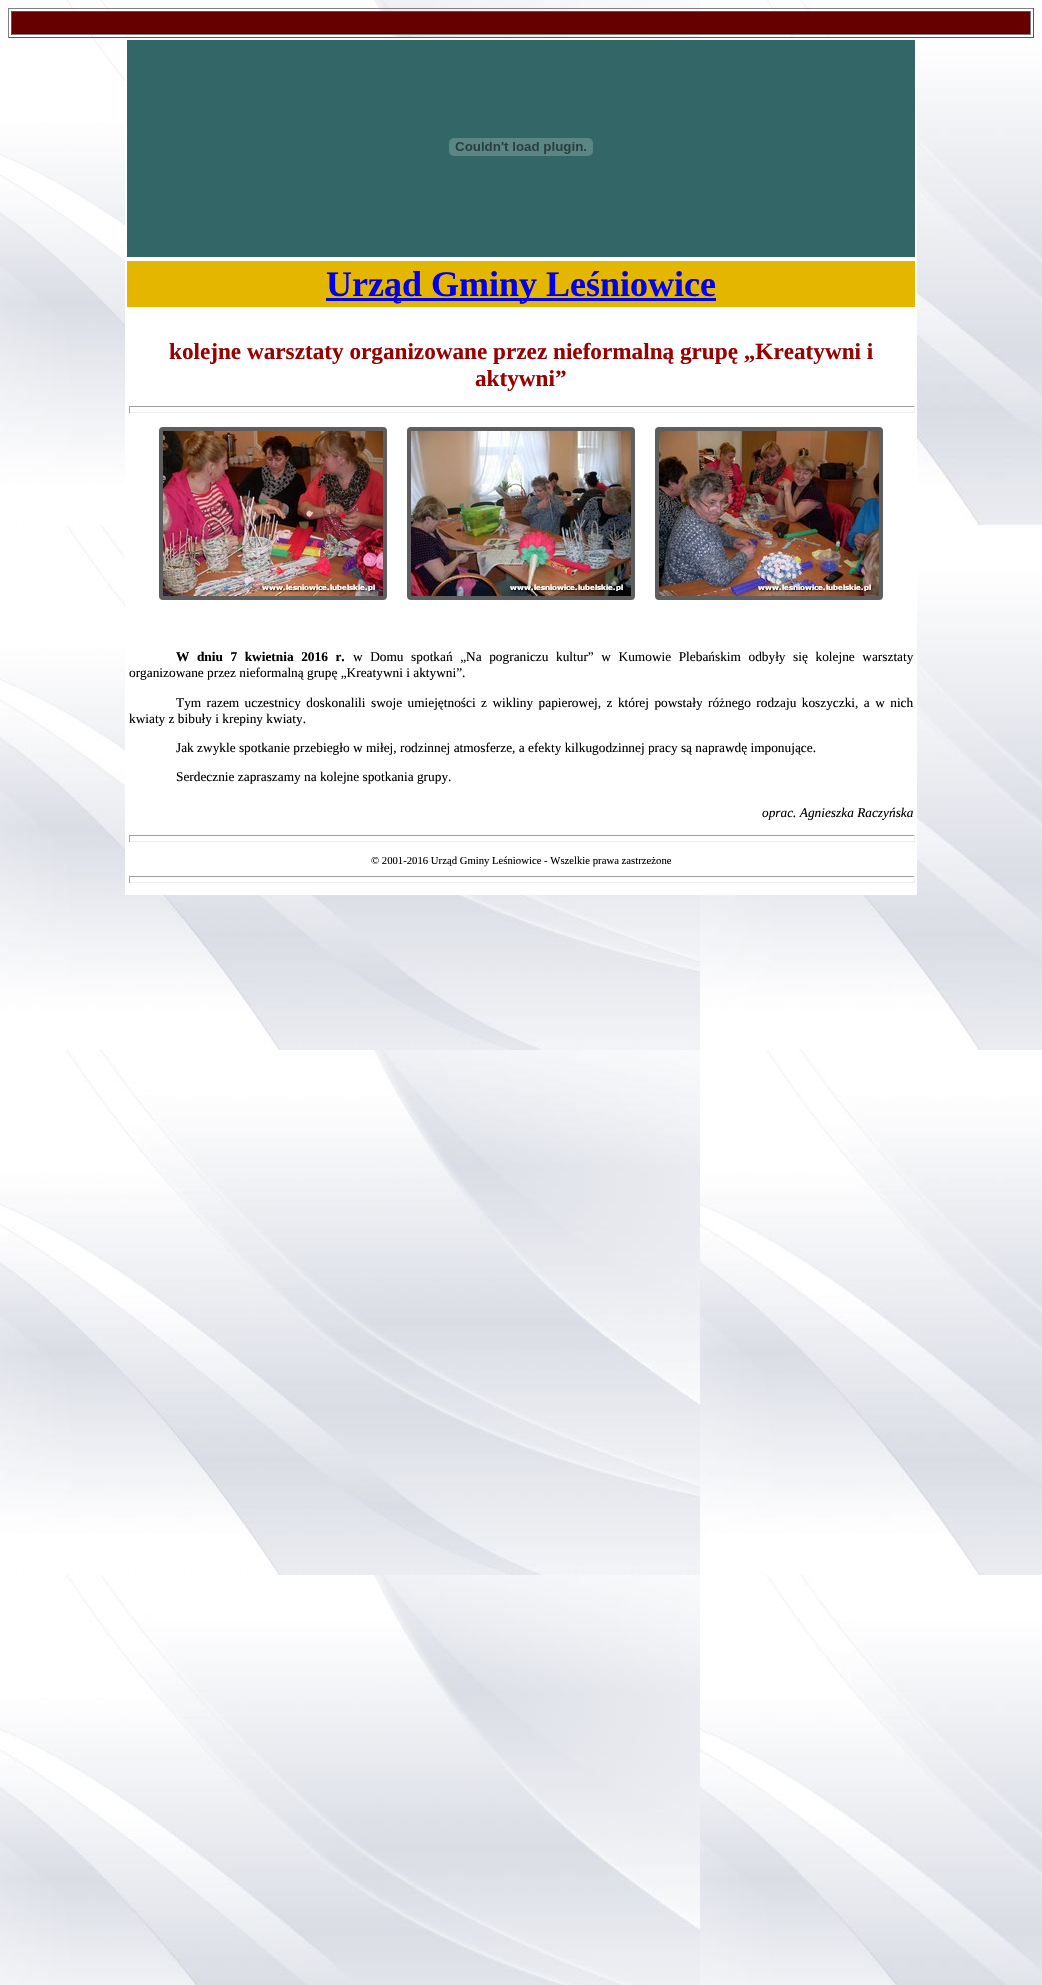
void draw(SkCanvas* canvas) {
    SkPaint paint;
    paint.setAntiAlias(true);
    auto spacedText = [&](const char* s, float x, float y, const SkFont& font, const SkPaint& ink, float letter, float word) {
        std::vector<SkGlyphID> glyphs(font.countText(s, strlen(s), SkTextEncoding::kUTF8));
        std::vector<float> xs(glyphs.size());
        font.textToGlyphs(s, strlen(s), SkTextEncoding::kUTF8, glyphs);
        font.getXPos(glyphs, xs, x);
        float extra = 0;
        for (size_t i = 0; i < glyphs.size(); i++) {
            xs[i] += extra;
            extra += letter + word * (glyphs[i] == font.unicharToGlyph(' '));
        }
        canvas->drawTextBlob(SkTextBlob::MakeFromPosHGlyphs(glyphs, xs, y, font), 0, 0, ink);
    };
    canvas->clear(0xFFFFFFFF);
    canvas->drawImageRect(SkImages::DeferredFromEncodedData(SkData::MakeFromFileName("img1.png")), SkRect::MakeXYWH(0, 0, 1042, 1985), SkSamplingOptions());
    paint.setColor(0xFF808080);
    canvas->drawRect(SkRect::MakeXYWH(8, 8, 1026, 1), paint);
    paint.setColor(0xFF555555);
    canvas->drawRect(SkRect::MakeXYWH(1033, 8, 1, 30), paint);
    canvas->drawRect(SkRect::MakeXYWH(8, 37, 1026, 1), paint);
    paint.setColor(0xFF808080);
    canvas->drawRect(SkRect::MakeXYWH(8, 8, 1, 30), paint);
    paint.setColor(0xFF660000);
    canvas->drawRect(SkRect::MakeXYWH(12, 12, 1018, 22), paint);
    paint.setColor(0xFF555555);
    canvas->drawRect(SkRect::MakeXYWH(11, 11, 1020, 1), paint);
    paint.setColor(0xFF808080);
    canvas->drawRect(SkRect::MakeXYWH(1030, 11, 1, 24), paint);
    canvas->drawRect(SkRect::MakeXYWH(11, 34, 1020, 1), paint);
    paint.setColor(0xFF555555);
    canvas->drawRect(SkRect::MakeXYWH(11, 11, 1, 24), paint);
    paint.setColor(0xFFFFFFFF);
    canvas->drawRect(SkRect::MakeXYWH(125, 38, 792, 857), paint);
    paint.setColor(0xFF336666);
    canvas->drawRect(SkRect::MakeXYWH(127, 40, 788, 217), paint);
    canvas->drawImageRect(SkImages::DeferredFromEncodedData(SkData::MakeFromFileName("img2.png")), SkRect::MakeXYWH(449, 138, 144, 18), SkSamplingOptions());
    paint.setColor(0xFFE4B600);
    canvas->drawRect(SkRect::MakeXYWH(127, 261, 788, 46), paint);
    paint.setColor(0xFF0000EE);
    canvas->drawRect(SkRect::MakeXYWH(326, 298, 390, 3), paint);
    SkFont font1(fontMgr->matchFamilyStyle("Liberation Serif", SkFontStyle::Bold()), 36);
    font1.setSubpixel(true);
    canvas->drawString("Urząd Gminy Leśniowice", 326, 296, font1, paint);
    SkFont font2(fontMgr->matchFamilyStyle("Liberation Serif", SkFontStyle::Bold()), 23.2f);
    font2.setSubpixel(true);
    paint.setColor(0xFF990000);
    canvas->drawString("kolejne warsztaty organizowane przez nieformalną grupę „Kreatywni i", 169, 359, font2, paint);
    canvas->drawString("aktywni”", 475, 386, font2, paint);
    paint.setColor(0xFF9F9F9F);
    canvas->drawRect(SkRect::MakeXYWH(129, 406, 786, 1), paint);
    paint.setColor(0xFFEEEEEE);
    canvas->drawRect(SkRect::MakeXYWH(914, 406, 1, 7), paint);
    canvas->drawRect(SkRect::MakeXYWH(129, 412, 786, 1), paint);
    paint.setColor(0xFF9F9F9F);
    canvas->drawRect(SkRect::MakeXYWH(129, 406, 1, 7), paint);
    paint.setStyle(SkPaint::kStroke_Style);
    paint.setStrokeWidth(4);
    paint.setColor(0xFF5E5E5E);
    canvas->drawRoundRect(SkRect::MakeXYWH(161, 429, 224, 169), 2, 2, paint);
    canvas->drawImageRect(SkImages::DeferredFromEncodedData(SkData::MakeFromFileName("img3.png")), SkRect::MakeXYWH(163, 431, 220, 165), SkSamplingOptions());
    canvas->drawRoundRect(SkRect::MakeXYWH(409, 429, 224, 169), 2, 2, paint);
    canvas->drawImageRect(SkImages::DeferredFromEncodedData(SkData::MakeFromFileName("img4.png")), SkRect::MakeXYWH(411, 431, 220, 165), SkSamplingOptions());
    canvas->drawRoundRect(SkRect::MakeXYWH(657, 429, 224, 169), 2, 2, paint);
    canvas->drawImageRect(SkImages::DeferredFromEncodedData(SkData::MakeFromFileName("img5.png")), SkRect::MakeXYWH(659, 431, 220, 165), SkSamplingOptions());
    SkFont font3(fontMgr->matchFamilyStyle("Liberation Serif", SkFontStyle::Bold()), 13.33f);
    font3.setSubpixel(true);
    paint.setStyle(SkPaint::kFill_Style);
    paint.setColor(0xFF000000);
    spacedText("W dniu 7 kwietnia 2016 r.", 176, 661, font3, paint, 0, 4.25f);
    SkFont font4(fontMgr->matchFamilyStyle("Liberation Serif", SkFontStyle::Normal()), 13.33f);
    font4.setSubpixel(true);
    spacedText("w Domu spotkań „Na pograniczu kultur” w Kumowie Plebańskim odbyły się kolejne warsztaty", 353, 661, font4, paint, 0, 4.25f);
    canvas->drawString("organizowane przez nieformalną grupę „Kreatywni i aktywni”.", 129, 677, font4, paint);
    spacedText("Tym razem uczestnicy doskonalili swoje umiejętności z wikliny papierowej, z której powstały różnego rodzaju koszyczki, a w nich", 176, 707, font4, paint, 0, 2.1f);
    canvas->drawString("kwiaty z bibuły i krepiny kwiaty.", 129, 723, font4, paint);
    canvas->drawString("Jak zwykle spotkanie przebiegło w miłej, rodzinnej atmosferze, a efekty kilkugodzinnej pracy są naprawdę imponujące.", 176, 752, font4, paint);
    canvas->drawString("Serdecznie zapraszamy na kolejne spotkania grupy.", 176, 781, font4, paint);
    SkFont font5(fontMgr->matchFamilyStyle("Liberation Serif", SkFontStyle::Italic()), 13.33f);
    font5.setSubpixel(true);
    canvas->drawString("oprac. Agnieszka Raczyńska", 762, 817, font5, paint);
    paint.setColor(0xFF9F9F9F);
    canvas->drawRect(SkRect::MakeXYWH(129, 835, 786, 1), paint);
    paint.setColor(0xFFEEEEEE);
    canvas->drawRect(SkRect::MakeXYWH(914, 835, 1, 7), paint);
    canvas->drawRect(SkRect::MakeXYWH(129, 841, 786, 1), paint);
    paint.setColor(0xFF9F9F9F);
    canvas->drawRect(SkRect::MakeXYWH(129, 835, 1, 7), paint);
    SkFont font6(fontMgr->matchFamilyStyle("Liberation Serif", SkFontStyle::Normal()), 10.7f);
    font6.setSubpixel(true);
    paint.setColor(0xFF000000);
    canvas->drawString("© 2001-2016 Urząd Gminy Leśniowice - Wszelkie prawa zastrzeżone", 371, 864, font6, paint);
    paint.setColor(0xFF9F9F9F);
    canvas->drawRect(SkRect::MakeXYWH(129, 876, 786, 1), paint);
    paint.setColor(0xFFEEEEEE);
    canvas->drawRect(SkRect::MakeXYWH(914, 876, 1, 7), paint);
    canvas->drawRect(SkRect::MakeXYWH(129, 882, 786, 1), paint);
    paint.setColor(0xFF9F9F9F);
    canvas->drawRect(SkRect::MakeXYWH(129, 876, 1, 7), paint);
}
